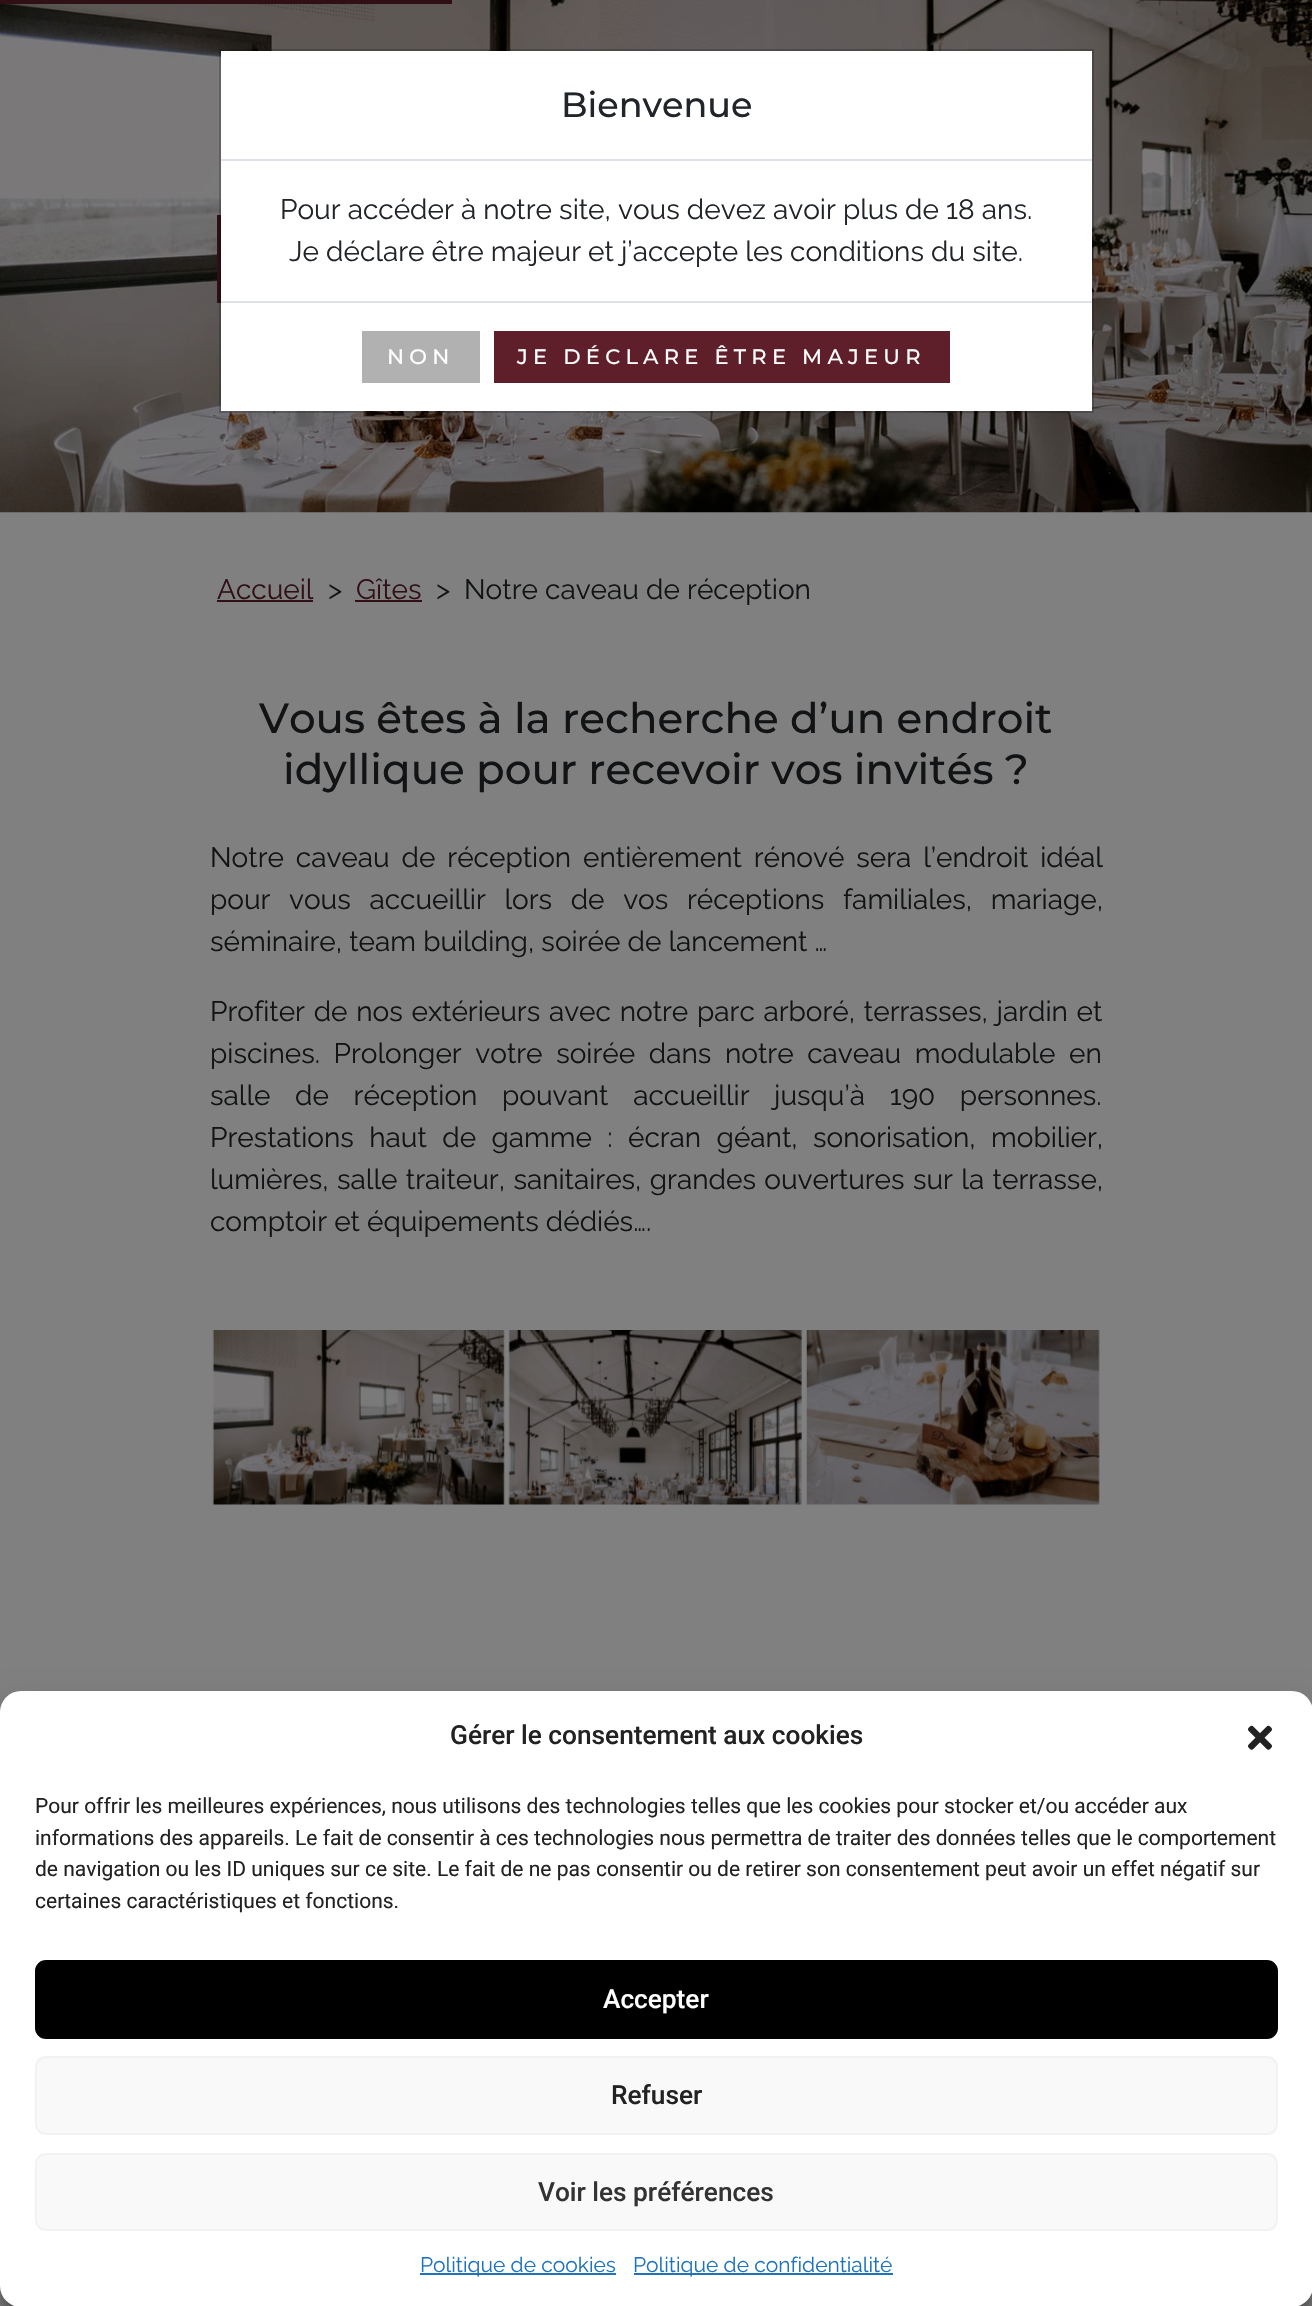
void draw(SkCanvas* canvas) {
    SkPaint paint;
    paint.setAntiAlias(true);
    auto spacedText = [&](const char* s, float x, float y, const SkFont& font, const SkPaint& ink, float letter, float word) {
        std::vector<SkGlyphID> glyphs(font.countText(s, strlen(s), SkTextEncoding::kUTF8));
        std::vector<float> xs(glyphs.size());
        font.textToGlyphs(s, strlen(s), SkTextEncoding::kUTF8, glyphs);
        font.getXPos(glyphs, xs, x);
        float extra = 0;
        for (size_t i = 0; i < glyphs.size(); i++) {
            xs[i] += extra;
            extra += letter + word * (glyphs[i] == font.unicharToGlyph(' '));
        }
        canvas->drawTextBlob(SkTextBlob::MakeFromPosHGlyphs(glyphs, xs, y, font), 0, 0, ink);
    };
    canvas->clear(0xFF808080);
    canvas->drawImageRect(SkImages::DeferredFromEncodedData(SkData::MakeFromFileName("img1.png")), SkRect::MakeXYWH(0, 0, 1312, 513), SkSamplingOptions());
    paint.setColor(0xFF301015);
    canvas->drawRect(SkRect::MakeXYWH(0, 0, 452, 4), paint);
    paint.setColor(0xFFFFFFFF);
    canvas->drawRect(SkRect::MakeXYWH(221, 51, 871, 360), paint);
    paint.setColor(0xFF301015);
    canvas->drawRect(SkRect::MakeXYWH(217, 215, 4, 88), paint);
    paint.setStyle(SkPaint::kStroke_Style);
    paint.setStrokeWidth(2);
    paint.setColor(0x33000000);
    canvas->drawRect(SkRect::MakeXYWH(220, 50, 873, 362), paint);
    paint.setStyle(SkPaint::kFill_Style);
    paint.setColor(0xFFDEE2E6);
    canvas->drawRect(SkRect::MakeXYWH(221, 159, 871, 2), paint);
    SkFont font1(fontMgr->matchFamilyStyle("Montserrat", SkFontStyle(500, SkFontStyle::kNormal_Width, SkFontStyle::kUpright_Slant)), 35);
    font1.setSubpixel(true);
    paint.setColor(0xFF212529);
    canvas->drawString("Bienvenue", 561, 117, font1, paint);
    SkFont font2(fontMgr->matchFamilyStyle("Raleway", SkFontStyle::Normal()), 28);
    font2.setSubpixel(true);
    canvas->drawString("Pour accéder à notre site, vous devez avoir plus de 18 ans.", 280, 219, font2, paint);
    canvas->drawString("Je déclare être majeur et j’accepte les conditions du site.", 289, 261, font2, paint);
    paint.setColor(0xFFDEE2E6);
    canvas->drawRect(SkRect::MakeXYWH(221, 301, 871, 2), paint);
    paint.setColor(0xFFB1B1B1);
    canvas->drawRect(SkRect::MakeXYWH(362, 331, 118, 52), paint);
    SkFont font3(fontMgr->matchFamilyStyle("Montserrat", SkFontStyle(500, SkFontStyle::kNormal_Width, SkFontStyle::kUpright_Slant)), 21);
    font3.setSubpixel(true);
    paint.setColor(0xFFFFFFFF);
    spacedText("NON", 387, 364, font3, paint, 5.25f, 0);
    paint.setColor(0xFF5F1F2A);
    canvas->drawRect(SkRect::MakeXYWH(494, 331, 456, 52), paint);
    paint.setColor(0xFFFFFFFF);
    spacedText("JE DÉCLARE ÊTRE MAJEUR", 517, 364, font3, paint, 5.25f, 0);
    paint.setColor(0xFF2F1016);
    canvas->drawString("Accueil", 217, 599, font2, paint);
    canvas->drawRect(SkRect::MakeXYWH(217, 600, 96, 2), paint);
    paint.setColor(0xFF111315);
    canvas->drawString(">", 328, 599, font2, paint);
    paint.setColor(0xFF2F1016);
    canvas->drawString("Gîtes", 356, 599, font2, paint);
    canvas->drawRect(SkRect::MakeXYWH(355, 600, 67, 2), paint);
    paint.setColor(0xFF111315);
    canvas->drawString(">", 436, 599, font2, paint);
    canvas->drawString("Notre caveau de réception", 464, 599, font2, paint);
    SkFont font4(fontMgr->matchFamilyStyle("Montserrat", SkFontStyle(500, SkFontStyle::kNormal_Width, SkFontStyle::kUpright_Slant)), 42);
    font4.setSubpixel(true);
    canvas->drawString("Vous êtes à la recherche d’un endroit", 259, 733, font4, paint);
    canvas->drawString("idyllique pour recevoir vos invités ?", 283, 784, font4, paint);
    spacedText("Notre caveau de réception entièrement rénové sera l’endroit idéal", 210, 867, font2, paint, 0, 4.75f);
    spacedText("pour vous accueillir lors de vos réceptions familiales, mariage,", 210, 909, font2, paint, 0, 11.5f);
    canvas->drawString("séminaire, team building, soirée de lancement …", 210, 951, font2, paint);
    spacedText("Profiter de nos extérieurs avec notre parc arboré, terrasses, jardin et", 210, 1021, font2, paint, 0, 1.6f);
    spacedText("piscines. Prolonger votre soirée dans notre caveau modulable en", 210, 1063, font2, paint, 0, 6.5f);
    spacedText("salle de réception pouvant accueillir jusqu’à 190 personnes.", 210, 1105, font2, paint, 0, 17.5f);
    spacedText("Prestations haut de gamme : écran géant, sonorisation, mobilier,", 210, 1147, font2, paint, 0, 8.25f);
    spacedText("lumières, salle traiteur, sanitaires, grandes ouvertures sur la terrasse,", 210, 1189, font2, paint, 0, 1.25f);
    canvas->drawString("comptoir et équipements dédiés….", 210, 1231, font2, paint);
    canvas->drawImageRect(SkImages::DeferredFromEncodedData(SkData::MakeFromFileName("img2.png")), SkRect::MakeXYWH(212, 1330, 293, 175), SkSamplingOptions());
    canvas->drawImageRect(SkImages::DeferredFromEncodedData(SkData::MakeFromFileName("img3.png")), SkRect::MakeXYWH(508, 1330, 294, 175), SkSamplingOptions());
    canvas->drawImageRect(SkImages::DeferredFromEncodedData(SkData::MakeFromFileName("img4.png")), SkRect::MakeXYWH(806, 1330, 294, 175), SkSamplingOptions());
    paint.setColor(0x3B000000);
    paint.setMaskFilter(SkMaskFilter::MakeBlur(kNormal_SkBlurStyle, 5));
    canvas->drawRoundRect(SkRect::MakeXYWH(0, 1701, 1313, 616), 21, 21, paint);
    paint.setMaskFilter(nullptr);
    paint.setColor(0x30000000);
    paint.setMaskFilter(SkMaskFilter::MakeBlur(kNormal_SkBlurStyle, 17.5f));
    canvas->drawRoundRect(SkRect::MakeXYWH(0, 1708, 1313, 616), 21, 21, paint);
    paint.setMaskFilter(nullptr);
    paint.setColor(0xFFFFFFFF);
    canvas->drawRoundRect(SkRect::MakeXYWH(0, 1691, 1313, 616), 21, 21, paint);
    SkFont font5(fontMgr->matchFamilyStyle("Roboto", SkFontStyle(500, SkFontStyle::kNormal_Width, SkFontStyle::kUpright_Slant)), 26.25f);
    font5.setSubpixel(true);
    paint.setColor(0xFF222222);
    canvas->drawString("Gérer le consentement aux cookies", 450, 1744, font5, paint);
    canvas->drawImageRect(SkImages::DeferredFromEncodedData(SkData::MakeFromFileName("img5.png")), SkRect::MakeXYWH(1248, 1725, 24, 25), SkSamplingOptions());
    SkFont font6(fontMgr->matchFamilyStyle("Roboto", SkFontStyle::Normal()), 21);
    font6.setSubpixel(true);
    canvas->drawString("Pour offrir les meilleures expériences, nous utilisons des technologies telles que les cookies pour stocker et/ou accéder aux", 35, 1813, font6, paint);
    canvas->drawString("informations des appareils. Le fait de consentir à ces technologies nous permettra de traiter des données telles que le comportement", 35, 1845, font6, paint);
    canvas->drawString("de navigation ou les ID uniques sur ce site. Le fait de ne pas consentir ou de retirer son consentement peut avoir un effet négatif sur", 35, 1876, font6, paint);
    canvas->drawString("certaines caractéristiques et fonctions.", 35, 1908, font6, paint);
    paint.setColor(0xFF000000);
    canvas->drawRoundRect(SkRect::MakeXYWH(36, 1961, 1241, 77), 10, 10, paint);
    paint.setStyle(SkPaint::kStroke_Style);
    canvas->drawRoundRect(SkRect::MakeXYWH(36, 1961, 1241, 77), 10, 10, paint);
    paint.setStyle(SkPaint::kFill_Style);
    paint.setColor(0xFFFFFFFF);
    canvas->drawString("Accepter", 603, 2008, font5, paint);
    paint.setColor(0xFFF9F9F9);
    canvas->drawRoundRect(SkRect::MakeXYWH(36, 2057, 1241, 77), 10, 10, paint);
    paint.setStyle(SkPaint::kStroke_Style);
    paint.setColor(0xFFF2F2F2);
    canvas->drawRoundRect(SkRect::MakeXYWH(36, 2057, 1241, 77), 10, 10, paint);
    paint.setStyle(SkPaint::kFill_Style);
    paint.setColor(0xFF222222);
    canvas->drawString("Refuser", 611, 2104, font5, paint);
    paint.setColor(0xFFF9F9F9);
    canvas->drawRoundRect(SkRect::MakeXYWH(36, 2154, 1241, 76), 10, 10, paint);
    paint.setStyle(SkPaint::kStroke_Style);
    paint.setColor(0xFFF2F2F2);
    canvas->drawRoundRect(SkRect::MakeXYWH(36, 2154, 1241, 76), 10, 10, paint);
    paint.setStyle(SkPaint::kFill_Style);
    paint.setColor(0xFF333333);
    canvas->drawString("Voir les préférences", 538, 2201, font5, paint);
    paint.setColor(0xFF1E73BE);
    canvas->drawRect(SkRect::MakeXYWH(420, 2273, 196, 2), paint);
    SkFont font7(fontMgr->matchFamilyStyle("Raleway", SkFontStyle::Normal()), 21);
    font7.setSubpixel(true);
    canvas->drawString("Politique de cookies", 420, 2272, font7, paint);
    canvas->drawRect(SkRect::MakeXYWH(634, 2273, 259, 2), paint);
    canvas->drawString("Politique de confidentialité", 633, 2272, font7, paint);
}
